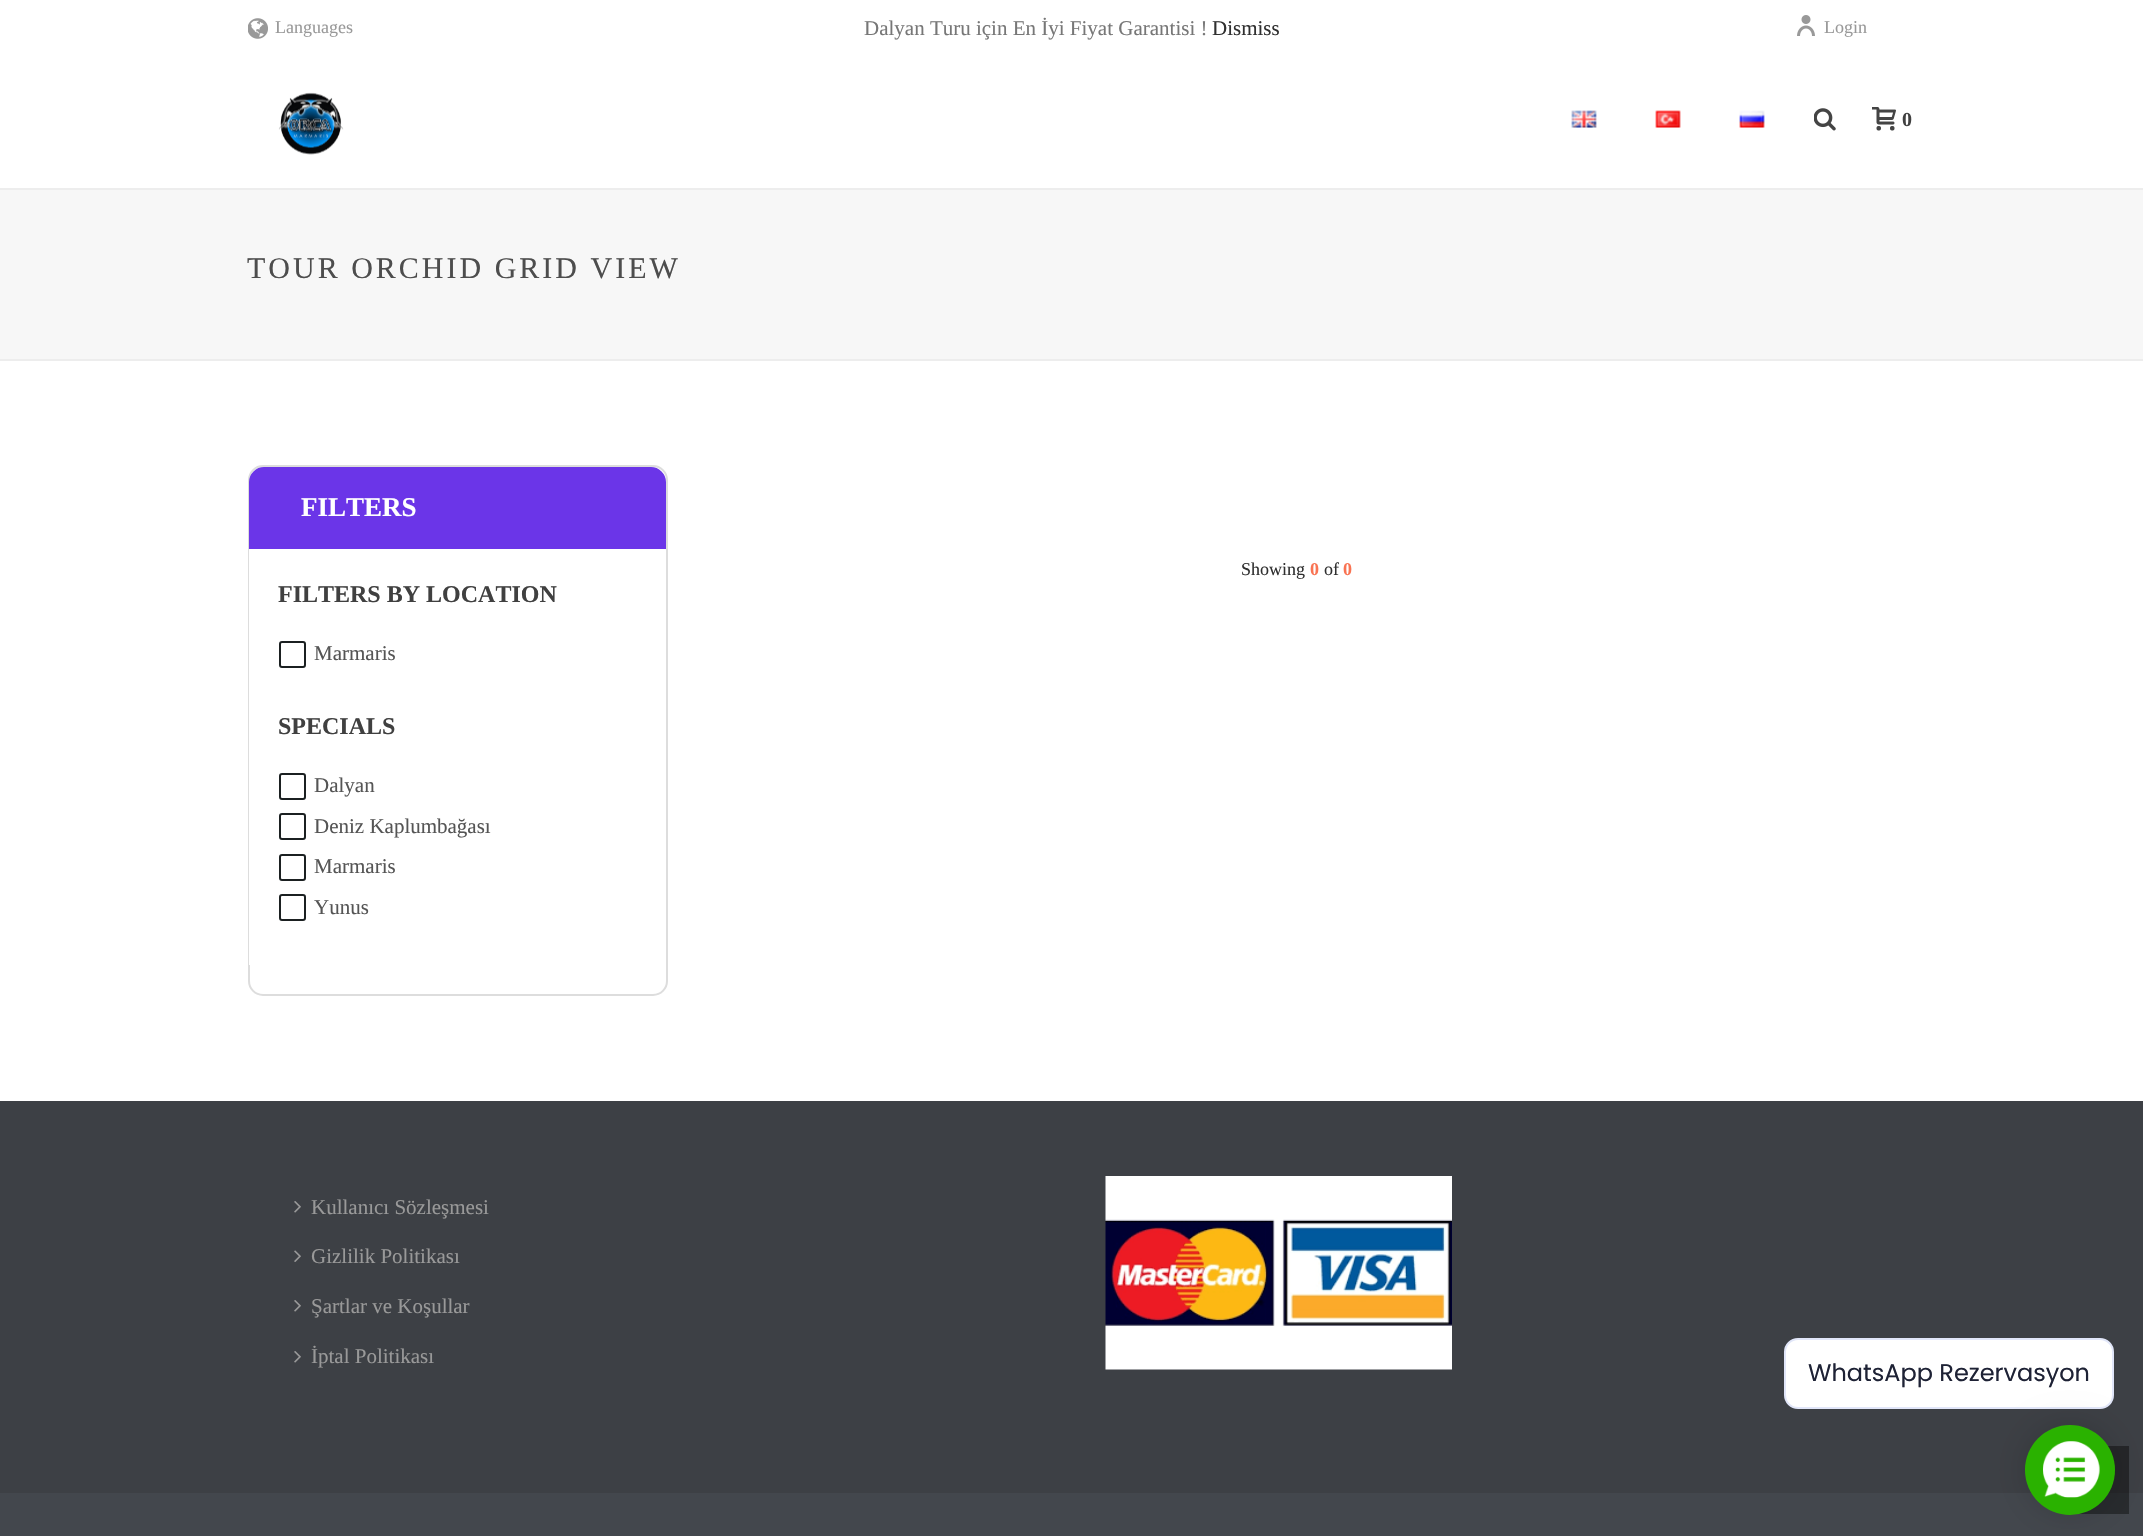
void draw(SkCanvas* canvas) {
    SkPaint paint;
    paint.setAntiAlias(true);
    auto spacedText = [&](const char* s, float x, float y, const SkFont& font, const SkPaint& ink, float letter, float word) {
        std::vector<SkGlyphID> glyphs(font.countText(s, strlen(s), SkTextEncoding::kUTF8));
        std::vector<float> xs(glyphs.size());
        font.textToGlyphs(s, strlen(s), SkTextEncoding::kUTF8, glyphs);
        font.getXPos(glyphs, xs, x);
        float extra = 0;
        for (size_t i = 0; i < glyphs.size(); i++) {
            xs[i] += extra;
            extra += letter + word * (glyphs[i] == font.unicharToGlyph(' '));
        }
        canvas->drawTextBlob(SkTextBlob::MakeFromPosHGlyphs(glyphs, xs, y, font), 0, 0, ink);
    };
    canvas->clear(0xFFFFFFFF);
    SkFont font1(fontMgr->matchFamilyStyle("Liberation Serif", SkFontStyle::Normal()), 21);
    font1.setSubpixel(true);
    paint.setColor(0xFF777777);
    canvas->drawString("Dalyan Turu için En İyi Fiyat Garantisi !", 864, 35, font1, paint);
    paint.setColor(0xFF303030);
    canvas->drawString("Dismiss", 1212, 35, font1, paint);
    paint.setColor(0xFFF7F7F7);
    canvas->drawRect(SkRect::MakeXYWH(0, 190, 2143, 169), paint);
    paint.setColor(0xFFEDEDED);
    canvas->drawRect(SkRect::MakeXYWH(0, 359, 2143, 2), paint);
    canvas->drawImageRect(SkImages::DeferredFromEncodedData(SkData::MakeFromFileName("img1.png")), SkRect::MakeXYWH(248, 18, 20, 21), SkSamplingOptions());
    SkFont font2(fontMgr->matchFamilyStyle("Liberation Serif", SkFontStyle::Normal()), 18);
    font2.setSubpixel(true);
    paint.setColor(0xFF999999);
    canvas->drawString("Languages", 275, 33, font2, paint);
    canvas->drawImageRect(SkImages::DeferredFromEncodedData(SkData::MakeFromFileName("img2.png")), SkRect::MakeXYWH(1797, 15, 18, 21), SkSamplingOptions());
    canvas->drawString("Login", 1824, 33, font2, paint);
    paint.setColor(0xFFEDEDED);
    canvas->drawRect(SkRect::MakeXYWH(0, 188, 2143, 2), paint);
    canvas->drawImageRect(SkImages::DeferredFromEncodedData(SkData::MakeFromFileName("img3.png")), SkRect::MakeXYWH(248, 53, 134, 102), SkSamplingOptions());
    canvas->drawImageRect(SkImages::DeferredFromEncodedData(SkData::MakeFromFileName("img4.png")), SkRect::MakeXYWH(1571, 110, 26, 18), SkSamplingOptions());
    canvas->drawImageRect(SkImages::DeferredFromEncodedData(SkData::MakeFromFileName("img5.png")), SkRect::MakeXYWH(1655, 110, 26, 18), SkSamplingOptions());
    canvas->drawImageRect(SkImages::DeferredFromEncodedData(SkData::MakeFromFileName("img6.png")), SkRect::MakeXYWH(1739, 110, 26, 18), SkSamplingOptions());
    canvas->drawImageRect(SkImages::DeferredFromEncodedData(SkData::MakeFromFileName("img7.png")), SkRect::MakeXYWH(1814, 108, 22, 23), SkSamplingOptions());
    canvas->drawImageRect(SkImages::DeferredFromEncodedData(SkData::MakeFromFileName("img8.png")), SkRect::MakeXYWH(1872, 107, 24, 24), SkSamplingOptions());
    SkFont font3(fontMgr->matchFamilyStyle("Liberation Serif", SkFontStyle::Bold()), 20);
    font3.setSubpixel(true);
    paint.setColor(0xFF404040);
    canvas->drawString("0", 1902, 126, font3, paint);
    SkFont font4(fontMgr->matchFamilyStyle("Liberation Serif", SkFontStyle::Normal()), 30);
    font4.setSubpixel(true);
    paint.setColor(0xFF4D4D4D);
    spacedText("TOUR ORCHID GRID VIEW", 247, 278, font4, paint, 3, 0);
    paint.setStyle(SkPaint::kStroke_Style);
    paint.setStrokeWidth(2);
    paint.setColor(0xFFDDDDDD);
    canvas->drawRoundRect(SkRect::MakeXYWH(249, 466, 418, 529), 14, 14, paint);
    paint.setStyle(SkPaint::kFill_Style);
    paint.setColor(0xFF6B35E8);
    canvas->drawPath(SkPathBuilder().moveTo(264, 468).lineTo(651, 468).cubicTo(658.5f, 468, 665, 474.5f, 665, 482).lineTo(665, 548).lineTo(250, 548).lineTo(250, 482).cubicTo(250, 474.5f, 256.5f, 468, 264, 468).close().detach(), paint);
    paint.setStyle(SkPaint::kStroke_Style);
    canvas->drawPath(SkPathBuilder().moveTo(264, 468).lineTo(651, 468).cubicTo(658.5f, 468, 665, 474.5f, 665, 482).lineTo(665, 548).lineTo(250, 548).lineTo(250, 482).cubicTo(250, 474.5f, 256.5f, 468, 264, 468).close().detach(), paint);
    SkFont font5(fontMgr->matchFamilyStyle("Liberation Serif", SkFontStyle::Bold()), 27);
    font5.setSubpixel(true);
    paint.setStyle(SkPaint::kFill_Style);
    paint.setColor(0xFFFFFFFF);
    canvas->drawString("FILTERS", 301, 516, font5, paint);
    canvas->drawRect(SkRect::MakeXYWH(249, 549, 1, 416), paint);
    SkFont font6(fontMgr->matchFamilyStyle("Liberation Serif", SkFontStyle::Bold()), 24);
    font6.setSubpixel(true);
    paint.setColor(0xFF404040);
    canvas->drawString("FILTERS BY LOCATION", 278, 602, font6, paint);
    paint.setStyle(SkPaint::kStroke_Style);
    paint.setColor(0xFF1B2021);
    canvas->drawRoundRect(SkRect::MakeXYWH(280, 642, 25, 25), 2, 2, paint);
    paint.setStyle(SkPaint::kFill_Style);
    paint.setColor(0xFF555555);
    canvas->drawString("Marmaris", 314, 660, font1, paint);
    paint.setColor(0xFF404040);
    canvas->drawString("SPECIALS", 278, 734, font6, paint);
    paint.setStyle(SkPaint::kStroke_Style);
    paint.setColor(0xFF1B2021);
    canvas->drawRoundRect(SkRect::MakeXYWH(280, 774, 25, 25), 2, 2, paint);
    paint.setStyle(SkPaint::kFill_Style);
    paint.setColor(0xFF555555);
    canvas->drawString("Dalyan", 314, 792, font1, paint);
    paint.setStyle(SkPaint::kStroke_Style);
    paint.setColor(0xFF1B2021);
    canvas->drawRoundRect(SkRect::MakeXYWH(280, 814, 25, 25), 2, 2, paint);
    paint.setStyle(SkPaint::kFill_Style);
    paint.setColor(0xFF555555);
    canvas->drawString("Deniz Kaplumbağası", 314, 833, font1, paint);
    paint.setStyle(SkPaint::kStroke_Style);
    paint.setColor(0xFF1B2021);
    canvas->drawRoundRect(SkRect::MakeXYWH(280, 855, 25, 25), 2, 2, paint);
    paint.setStyle(SkPaint::kFill_Style);
    paint.setColor(0xFF555555);
    canvas->drawString("Marmaris", 314, 873, font1, paint);
    paint.setStyle(SkPaint::kStroke_Style);
    paint.setColor(0xFF1B2021);
    canvas->drawRoundRect(SkRect::MakeXYWH(280, 895, 25, 25), 2, 2, paint);
    paint.setStyle(SkPaint::kFill_Style);
    paint.setColor(0xFF555555);
    canvas->drawString("Yunus", 314, 914, font1, paint);
    paint.setColor(0xFF303030);
    canvas->drawString("Showing", 1241, 575, font2, paint);
    SkFont font7(fontMgr->matchFamilyStyle("Liberation Serif", SkFontStyle::Bold()), 18);
    font7.setSubpixel(true);
    paint.setColor(0xFFF97352);
    canvas->drawString("0", 1310, 575, font7, paint);
    paint.setColor(0xFF303030);
    canvas->drawString("of", 1324, 575, font2, paint);
    paint.setColor(0xFFF97352);
    canvas->drawString("0", 1343, 575, font7, paint);
    paint.setColor(0xFF3D4045);
    canvas->drawRect(SkRect::MakeXYWH(0, 1101, 2143, 392), paint);
    paint.setColor(0xFF252629);
    canvas->drawRect(SkRect::MakeXYWH(2108, 1446, 21, 47), paint);
    canvas->drawImageRect(SkImages::DeferredFromEncodedData(SkData::MakeFromFileName("img9.png")), SkRect::MakeXYWH(294, 1201, 7, 12), SkSamplingOptions());
    paint.setColor(0xFF999999);
    canvas->drawString("Kullanıcı Sözleşmesi", 311, 1214, font1, paint);
    canvas->drawImageRect(SkImages::DeferredFromEncodedData(SkData::MakeFromFileName("img10.png")), SkRect::MakeXYWH(294, 1250, 7, 12), SkSamplingOptions());
    canvas->drawString("Gizlilik Politikası", 311, 1263, font1, paint);
    canvas->drawImageRect(SkImages::DeferredFromEncodedData(SkData::MakeFromFileName("img9.png")), SkRect::MakeXYWH(294, 1300, 7, 12), SkSamplingOptions());
    canvas->drawString("Şartlar ve Koşullar", 311, 1313, font1, paint);
    canvas->drawImageRect(SkImages::DeferredFromEncodedData(SkData::MakeFromFileName("img9.png")), SkRect::MakeXYWH(294, 1351, 7, 12), SkSamplingOptions());
    canvas->drawString("İptal Politikası", 311, 1363, font1, paint);
    canvas->drawImageRect(SkImages::DeferredFromEncodedData(SkData::MakeFromFileName("img11.png")), SkRect::MakeXYWH(1105, 1176, 347, 194), SkSamplingOptions());
    paint.setColor(0xFF43474D);
    canvas->drawRect(SkRect::MakeXYWH(0, 1493, 2143, 43), paint);
    paint.setColor(0xFF282B2E);
    canvas->drawRect(SkRect::MakeXYWH(2079, 1493, 50, 21), paint);
    paint.setColor(0xFFFFFFFF);
    canvas->drawRoundRect(SkRect::MakeXYWH(1785, 1339, 328, 69), 13, 13, paint);
    paint.setStyle(SkPaint::kStroke_Style);
    paint.setColor(0xFFE1E6F9);
    canvas->drawRoundRect(SkRect::MakeXYWH(1785, 1339, 328, 69), 13, 13, paint);
    SkFont font8(fontMgr->matchFamilyStyle("Poppins", SkFontStyle::Normal()), 24);
    font8.setSubpixel(true);
    paint.setStyle(SkPaint::kFill_Style);
    paint.setColor(0xFF1E2235);
    canvas->drawString("WhatsApp Rezervasyon", 1808, 1381, font8, paint);
    paint.setColor(0x26000000);
    paint.setMaskFilter(SkMaskFilter::MakeBlur(kNormal_SkBlurStyle, 15));
    canvas->drawRoundRect(SkRect::MakeXYWH(2025, 1425, 90, 90), 45, 45, paint);
    paint.setMaskFilter(nullptr);
    paint.setColor(0xFF2AB200);
    canvas->drawCircle(2070, 1470, 45, paint);
    canvas->drawImageRect(SkImages::DeferredFromEncodedData(SkData::MakeFromFileName("img12.png")), SkRect::MakeXYWH(2043, 1441, 57, 57), SkSamplingOptions());
}
